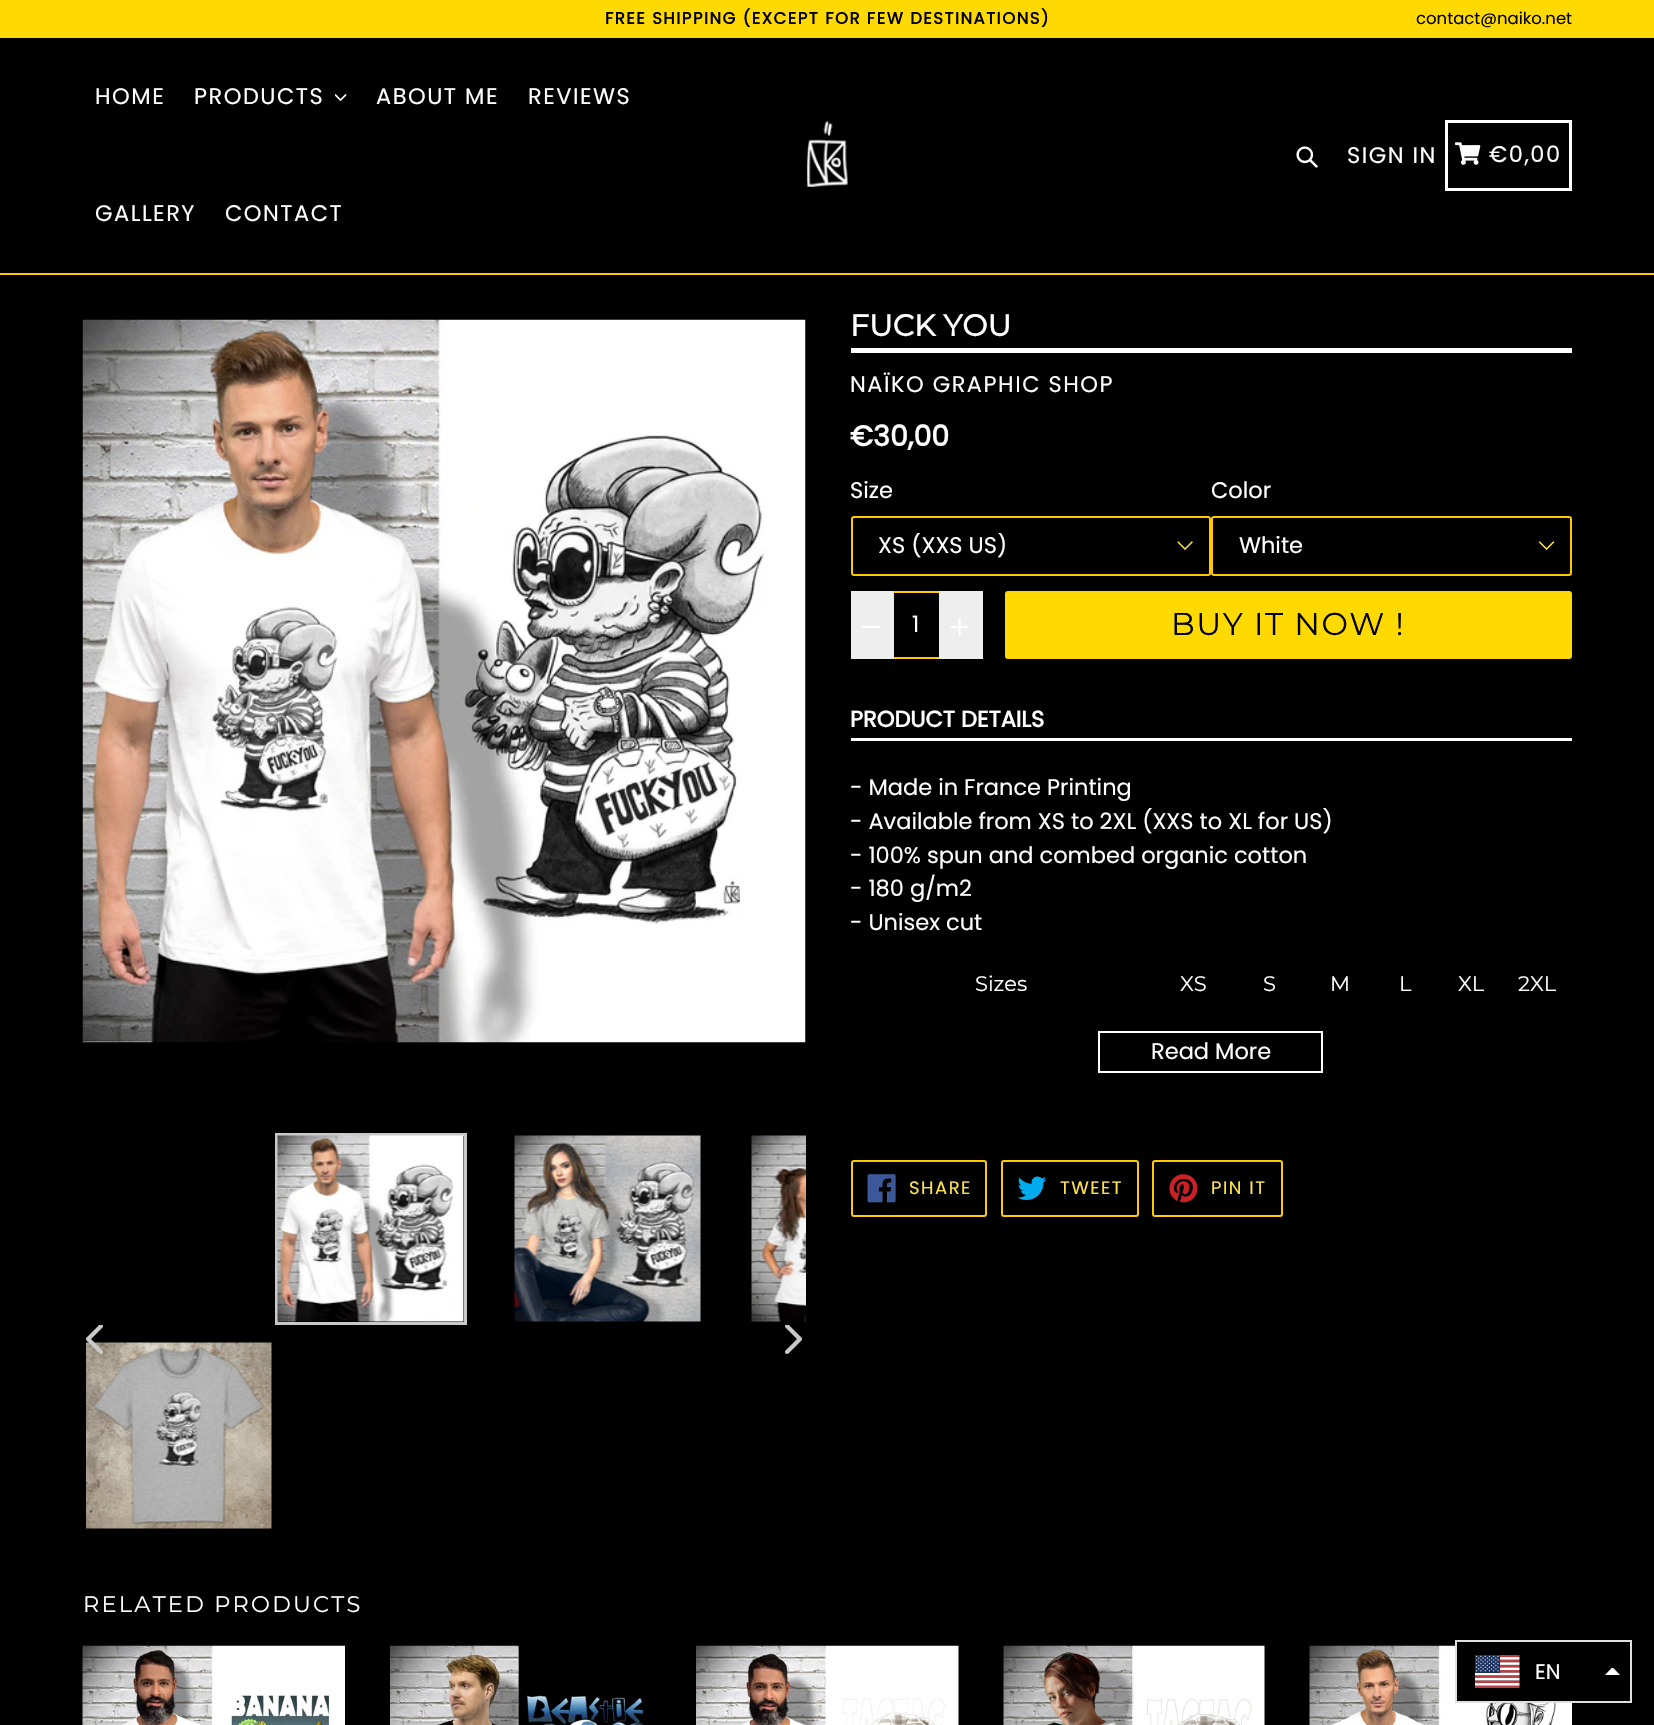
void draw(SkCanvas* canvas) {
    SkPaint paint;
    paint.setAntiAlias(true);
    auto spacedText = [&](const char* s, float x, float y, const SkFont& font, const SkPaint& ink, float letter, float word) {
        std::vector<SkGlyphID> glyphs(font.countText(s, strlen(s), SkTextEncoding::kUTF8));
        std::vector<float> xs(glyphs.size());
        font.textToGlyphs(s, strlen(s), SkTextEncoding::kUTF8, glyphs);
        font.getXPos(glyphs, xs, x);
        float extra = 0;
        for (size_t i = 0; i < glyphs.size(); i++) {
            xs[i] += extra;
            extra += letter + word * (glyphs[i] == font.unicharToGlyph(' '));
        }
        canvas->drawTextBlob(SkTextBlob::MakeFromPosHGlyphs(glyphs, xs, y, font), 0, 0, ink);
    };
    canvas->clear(0xFF000000);
    paint.setColor(0xFFFFD900);
    canvas->drawRect(SkRect::MakeXYWH(0, 0, 1654, 38), paint);
    SkFont font1(fontMgr->matchFamilyStyle("Poppins", SkFontStyle::Bold()), 16.5f);
    font1.setSubpixel(true);
    paint.setColor(0xFF000000);
    spacedText("FREE SHIPPING (EXCEPT FOR FEW DESTINATIONS)", 605, 24, font1, paint, 1.5f, 0);
    SkFont font2(fontMgr->matchFamilyStyle("Poppins", SkFontStyle::Normal()), 16.5f);
    font2.setSubpixel(true);
    canvas->drawString("contact@naiko.net", 1416, 24, font2, paint);
    paint.setColor(0xFFFFC900);
    canvas->drawRect(SkRect::MakeXYWH(0, 273, 1654, 2), paint);
    SkFont font3(fontMgr->matchFamilyStyle("Poppins", SkFontStyle::Normal()), 22.5f);
    font3.setSubpixel(true);
    paint.setColor(0xFFFFFFFF);
    spacedText("HOME", 95, 104, font3, paint, 1.5f, 0);
    spacedText("PRODUCTS", 194, 104, font3, paint, 1.5f, 0);
    canvas->drawImageRect(SkImages::DeferredFromEncodedData(SkData::MakeFromFileName("img1.png")), SkRect::MakeXYWH(335, 94, 12, 7), SkSamplingOptions());
    spacedText("ABOUT ME", 376, 104, font3, paint, 1.5f, 0);
    spacedText("REVIEWS", 528, 104, font3, paint, 1.5f, 0);
    spacedText("GALLERY", 95, 221, font3, paint, 1.5f, 0);
    spacedText("CONTACT", 225, 221, font3, paint, 1.5f, 0);
    canvas->drawImageRect(SkImages::DeferredFromEncodedData(SkData::MakeFromFileName("img2.png")), SkRect::MakeXYWH(806, 121, 42, 66), SkSamplingOptions());
    canvas->drawImageRect(SkImages::DeferredFromEncodedData(SkData::MakeFromFileName("img3.png")), SkRect::MakeXYWH(1296, 146, 22, 22), SkSamplingOptions());
    spacedText("SIGN IN", 1347, 163, font3, paint, 1.5f, 0);
    paint.setStyle(SkPaint::kStroke_Style);
    paint.setStrokeWidth(3);
    canvas->drawRect(SkRect::MakeXYWH(1446.5f, 121.5f, 124, 68), paint);
    canvas->drawImageRect(SkImages::DeferredFromEncodedData(SkData::MakeFromFileName("img4.png")), SkRect::MakeXYWH(1455, 142, 26, 23), SkSamplingOptions());
    paint.setStyle(SkPaint::kFill_Style);
    spacedText("€0,00", 1489, 162, font3, paint, 1.5f, 0);
    canvas->drawImageRect(SkImages::DeferredFromEncodedData(SkData::MakeFromFileName("img5.png")), SkRect::MakeXYWH(82, 319, 724, 724), SkSamplingOptions());
    paint.setStyle(SkPaint::kStroke_Style);
    paint.setColor(0xFFCAC9C9);
    canvas->drawRect(SkRect::MakeXYWH(276.5f, 1134.5f, 189, 189), paint);
    canvas->drawImageRect(SkImages::DeferredFromEncodedData(SkData::MakeFromFileName("img6.png")), SkRect::MakeXYWH(277, 1135, 187, 187), SkSamplingOptions());
    canvas->drawImageRect(SkImages::DeferredFromEncodedData(SkData::MakeFromFileName("img7.png")), SkRect::MakeXYWH(514, 1135, 187, 187), SkSamplingOptions());
    canvas->drawImageRect(SkImages::DeferredFromEncodedData(SkData::MakeFromFileName("img8.png")), SkRect::MakeXYWH(751, 1135, 55, 187), SkSamplingOptions());
    canvas->drawImageRect(SkImages::DeferredFromEncodedData(SkData::MakeFromFileName("img9.png")), SkRect::MakeXYWH(86, 1342, 186, 187), SkSamplingOptions());
    canvas->drawImageRect(SkImages::DeferredFromEncodedData(SkData::MakeFromFileName("img10.png")), SkRect::MakeXYWH(86, 1325, 17, 29), SkSamplingOptions());
    canvas->drawImageRect(SkImages::DeferredFromEncodedData(SkData::MakeFromFileName("img11.png")), SkRect::MakeXYWH(785, 1325, 17, 29), SkSamplingOptions());
    paint.setStyle(SkPaint::kFill_Style);
    paint.setColor(0xFFFFFFFF);
    canvas->drawRect(SkRect::MakeXYWH(851, 348, 721, 5), paint);
    SkFont font4(fontMgr->matchFamilyStyle("Montserrat", SkFontStyle::Bold()), 30);
    font4.setSubpixel(true);
    canvas->drawString("FUCK YOU", 850, 336, font4, paint);
    spacedText("NAÏKO GRAPHIC SHOP", 850, 392, font3, paint, 1.5f, 0);
    SkFont font5(fontMgr->matchFamilyStyle("Poppins", SkFontStyle::Bold()), 28.5f);
    font5.setSubpixel(true);
    canvas->drawString("€30,00", 850, 446, font5, paint);
    canvas->drawString("Size", 850, 498, font3, paint);
    canvas->drawImageRect(SkImages::DeferredFromEncodedData(SkData::MakeFromFileName("img12.png")), SkRect::MakeXYWH(1177, 541, 16, 9), SkSamplingOptions());
    paint.setStyle(SkPaint::kStroke_Style);
    paint.setStrokeWidth(2);
    paint.setColor(0xFFFFC900);
    canvas->drawRoundRect(SkRect::MakeXYWH(852, 517, 358, 58), 2, 2, paint);
    canvas->save();
    canvas->clipRect(SkRect::MakeXYWH(879, 533, 288, 27));
    paint.setStyle(SkPaint::kFill_Style);
    paint.setColor(0xFFFFFFFF);
    canvas->drawString("XS (XXS US)", 878, 553, font3, paint);
    canvas->restore();
    canvas->drawString("Color", 1211, 498, font3, paint);
    canvas->drawImageRect(SkImages::DeferredFromEncodedData(SkData::MakeFromFileName("img13.png")), SkRect::MakeXYWH(1538, 541, 17, 9), SkSamplingOptions());
    paint.setStyle(SkPaint::kStroke_Style);
    paint.setColor(0xFFFFC900);
    canvas->drawRoundRect(SkRect::MakeXYWH(1212, 517, 359, 58), 2, 2, paint);
    paint.setStyle(SkPaint::kFill_Style);
    paint.setColor(0xFFFFFFFF);
    canvas->drawString("White", 1239, 553, font3, paint);
    paint.setColor(0xFFEEEEEE);
    canvas->drawRect(SkRect::MakeXYWH(851, 591, 43, 68), paint);
    canvas->drawImageRect(SkImages::DeferredFromEncodedData(SkData::MakeFromFileName("img14.png")), SkRect::MakeXYWH(862, 626, 19, 2), SkSamplingOptions());
    paint.setColor(0xFFFFC900);
    canvas->drawRect(SkRect::MakeXYWH(894, 591, 45, 2), paint);
    canvas->drawRect(SkRect::MakeXYWH(894, 657, 45, 2), paint);
    paint.setColor(0xFFFFFFFF);
    canvas->drawString("1", 912, 632, font3, paint);
    paint.setColor(0xFFEEEEEE);
    canvas->drawRect(SkRect::MakeXYWH(939, 591, 44, 68), paint);
    canvas->drawImageRect(SkImages::DeferredFromEncodedData(SkData::MakeFromFileName("img15.png")), SkRect::MakeXYWH(950, 618, 19, 18), SkSamplingOptions());
    paint.setColor(0xFFFFD900);
    canvas->drawRoundRect(SkRect::MakeXYWH(1005, 591, 567, 68), 3, 3, paint);
    SkFont font6(fontMgr->matchFamilyStyle("Montserrat", SkFontStyle(100, SkFontStyle::kNormal_Width, SkFontStyle::kUpright_Slant)), 31.5f);
    font6.setSubpixel(true);
    paint.setColor(0xFF000000);
    spacedText("BUY IT NOW !", 1171, 635, font6, paint, 1.5f, 0);
    paint.setColor(0xFFFFFFFF);
    canvas->drawRect(SkRect::MakeXYWH(851, 738, 721, 3), paint);
    SkFont font7(fontMgr->matchFamilyStyle("Poppins", SkFontStyle::Bold()), 22.5f);
    font7.setSubpixel(true);
    canvas->drawString("PRODUCT DETAILS", 850, 727, font7, paint);
    canvas->drawString("- Made in France Printing", 850, 795, font3, paint);
    canvas->drawString("- Available from XS to 2XL (XXS to XL for US)", 850, 829, font3, paint);
    canvas->drawString("- 100% spun and combed organic cotton", 850, 863, font3, paint);
    canvas->drawString("- 180 g/m2", 850, 896, font3, paint);
    canvas->drawString("- Unisex cut", 850, 930, font3, paint);
    SkFont font8(fontMgr->matchFamilyStyle("Montserrat", SkFontStyle(100, SkFontStyle::kNormal_Width, SkFontStyle::kUpright_Slant)), 21);
    font8.setSubpixel(true);
    canvas->drawString("Sizes", 975, 991, font8, paint);
    canvas->drawString("XS", 1180, 991, font8, paint);
    canvas->drawString("S", 1263, 991, font8, paint);
    canvas->drawString("M", 1330, 991, font8, paint);
    canvas->drawString("L", 1399, 991, font8, paint);
    canvas->drawString("XL", 1458, 991, font8, paint);
    canvas->drawString("2XL", 1518, 991, font8, paint);
    paint.setStyle(SkPaint::kStroke_Style);
    canvas->drawRect(SkRect::MakeXYWH(1099, 1032, 223, 40), paint);
    paint.setStyle(SkPaint::kFill_Style);
    canvas->drawString("Read More", 1151, 1059, font3, paint);
    paint.setStyle(SkPaint::kStroke_Style);
    paint.setColor(0xFFFFC900);
    canvas->drawRoundRect(SkRect::MakeXYWH(852, 1161, 134, 55), 2, 2, paint);
    canvas->drawImageRect(SkImages::DeferredFromEncodedData(SkData::MakeFromFileName("img16.png")), SkRect::MakeXYWH(867, 1174, 29, 29), SkSamplingOptions());
    SkFont font9(fontMgr->matchFamilyStyle("Poppins", SkFontStyle::Normal()), 18);
    font9.setSubpixel(true);
    paint.setStyle(SkPaint::kFill_Style);
    paint.setColor(0xFFFCE24F);
    spacedText("SHARE", 909, 1194, font9, paint, 1.5f, 0);
    paint.setStyle(SkPaint::kStroke_Style);
    paint.setColor(0xFFFFC900);
    canvas->drawRoundRect(SkRect::MakeXYWH(1002, 1161, 136, 55), 2, 2, paint);
    canvas->drawImageRect(SkImages::DeferredFromEncodedData(SkData::MakeFromFileName("img17.png")), SkRect::MakeXYWH(1017, 1176, 30, 24), SkSamplingOptions());
    paint.setStyle(SkPaint::kFill_Style);
    paint.setColor(0xFFFCE24F);
    spacedText("TWEET", 1060, 1194, font9, paint, 1.5f, 0);
    paint.setStyle(SkPaint::kStroke_Style);
    paint.setColor(0xFFFFC900);
    canvas->drawRoundRect(SkRect::MakeXYWH(1153, 1161, 129, 55), 2, 2, paint);
    canvas->drawImageRect(SkImages::DeferredFromEncodedData(SkData::MakeFromFileName("img18.png")), SkRect::MakeXYWH(1169, 1174, 29, 29), SkSamplingOptions());
    paint.setStyle(SkPaint::kFill_Style);
    paint.setColor(0xFFFCE24F);
    spacedText("PIN IT", 1211, 1194, font9, paint, 1.5f, 0);
    SkFont font10(fontMgr->matchFamilyStyle("Montserrat", SkFontStyle(100, SkFontStyle::kNormal_Width, SkFontStyle::kUpright_Slant)), 22.5f);
    font10.setSubpixel(true);
    paint.setColor(0xFFFFFFFF);
    spacedText("RELATED PRODUCTS", 83, 1612, font10, paint, 2.25f, 0);
    canvas->drawImageRect(SkImages::DeferredFromEncodedData(SkData::MakeFromFileName("img19.png")), SkRect::MakeXYWH(82, 1645, 263, 80), SkSamplingOptions());
    canvas->drawImageRect(SkImages::DeferredFromEncodedData(SkData::MakeFromFileName("img20.png")), SkRect::MakeXYWH(390, 1645, 255, 80), SkSamplingOptions());
    canvas->drawImageRect(SkImages::DeferredFromEncodedData(SkData::MakeFromFileName("img21.png")), SkRect::MakeXYWH(696, 1645, 263, 80), SkSamplingOptions());
    canvas->drawImageRect(SkImages::DeferredFromEncodedData(SkData::MakeFromFileName("img22.png")), SkRect::MakeXYWH(1003, 1645, 262, 80), SkSamplingOptions());
    canvas->drawImageRect(SkImages::DeferredFromEncodedData(SkData::MakeFromFileName("img23.png")), SkRect::MakeXYWH(1309, 1645, 263, 80), SkSamplingOptions());
    paint.setColor(0xFF000000);
    canvas->drawRect(SkRect::MakeXYWH(1457, 1645, 115, 56), paint);
    paint.setStyle(SkPaint::kStroke_Style);
    paint.setColor(0xFFE0E0E0);
    canvas->drawRect(SkRect::MakeXYWH(1456, 1641, 175, 61), paint);
    canvas->drawImageRect(SkImages::DeferredFromEncodedData(SkData::MakeFromFileName("img24.png")), SkRect::MakeXYWH(1475, 1655, 45, 33), SkSamplingOptions());
    SkFont font11(fontMgr->matchFamilyStyle("Poppins", SkFontStyle::Normal()), 21);
    font11.setSubpixel(true);
    paint.setStyle(SkPaint::kFill_Style);
    paint.setColor(0xFFFFFFFF);
    canvas->drawString("EN", 1535, 1679, font11, paint);
    canvas->save();
    canvas->clipRect(SkRect::MakeXYWH(1605, 1668, 15, 8));
    canvas->drawPath(SkPathBuilder(SkPathFillType::kEvenOdd).moveTo(1605, 1675).lineTo(1612.5f, 1667).lineTo(1620, 1675).close().detach(), paint);
    canvas->restore();
}
